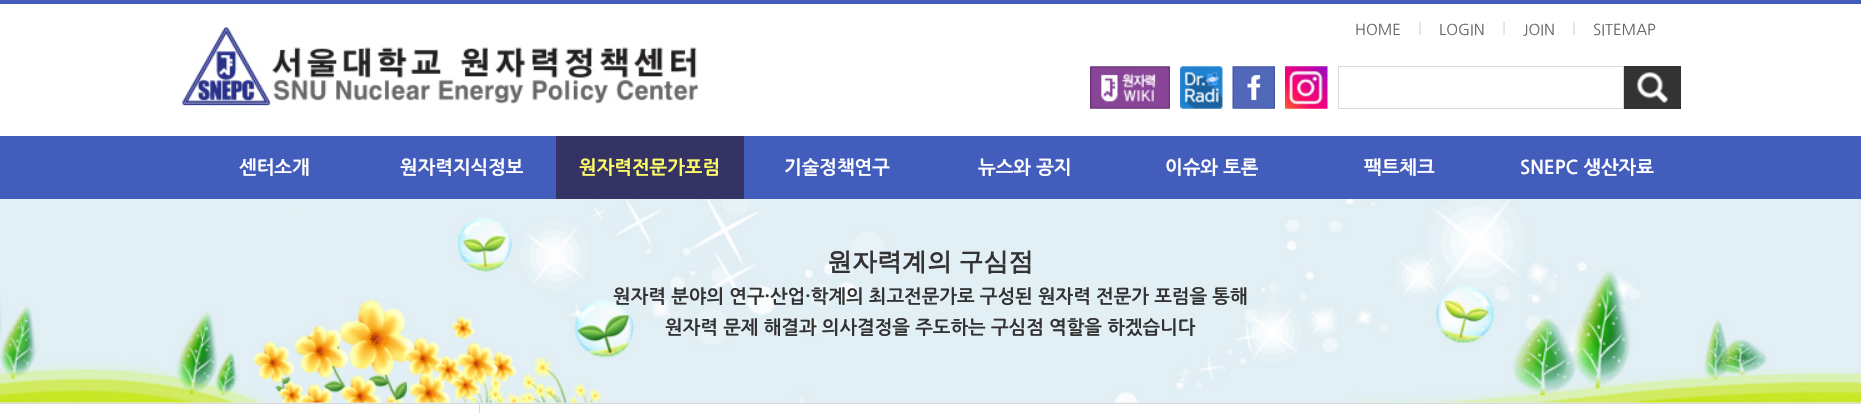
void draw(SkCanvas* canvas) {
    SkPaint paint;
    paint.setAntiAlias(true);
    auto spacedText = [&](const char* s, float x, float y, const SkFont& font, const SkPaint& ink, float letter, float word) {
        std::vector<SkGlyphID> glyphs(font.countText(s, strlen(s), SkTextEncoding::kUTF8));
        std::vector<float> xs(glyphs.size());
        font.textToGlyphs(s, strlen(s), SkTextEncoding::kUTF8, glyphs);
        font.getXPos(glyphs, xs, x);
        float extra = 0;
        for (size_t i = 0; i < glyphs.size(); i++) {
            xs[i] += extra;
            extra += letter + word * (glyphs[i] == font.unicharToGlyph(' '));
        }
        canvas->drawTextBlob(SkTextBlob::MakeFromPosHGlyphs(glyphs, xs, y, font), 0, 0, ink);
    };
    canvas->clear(0xFFFFFFFF);
    paint.setColor(0xFF435DBD);
    canvas->drawRect(SkRect::MakeXYWH(0, 0, 1861, 4), paint);
    canvas->drawImageRect(SkImages::DeferredFromEncodedData(SkData::MakeFromFileName("img1.png")), SkRect::MakeXYWH(182, 27, 516, 79), SkSamplingOptions());
    SkFont font1(fontMgr->matchFamilyStyle("NanumGothic", SkFontStyle::Normal()), 15);
    font1.setSubpixel(true);
    paint.setColor(0xFF666666);
    canvas->drawString("HOME", 1355, 35, font1, paint);
    SkFont font2(fontMgr->matchFamilyStyle("NanumGothic", SkFontStyle::Normal()), 16);
    font2.setSubpixel(true);
    paint.setColor(0xFFDBDBDB);
    canvas->drawString("l", 1418, 35, font2, paint);
    paint.setColor(0xFF666666);
    canvas->drawString("LOGIN", 1439, 35, font1, paint);
    paint.setColor(0xFFDBDBDB);
    canvas->drawString("l", 1502, 35, font2, paint);
    paint.setColor(0xFF666666);
    canvas->drawString("JOIN", 1523, 35, font1, paint);
    paint.setColor(0xFFDBDBDB);
    canvas->drawString("l", 1572, 35, font2, paint);
    paint.setColor(0xFF666666);
    canvas->drawString("SITEMAP", 1593, 35, font1, paint);
    canvas->drawImageRect(SkImages::DeferredFromEncodedData(SkData::MakeFromFileName("img2.png")), SkRect::MakeXYWH(1090, 66, 80, 43), SkSamplingOptions());
    canvas->drawImageRect(SkImages::DeferredFromEncodedData(SkData::MakeFromFileName("img3.png")), SkRect::MakeXYWH(1180, 66, 43, 43), SkSamplingOptions());
    canvas->drawImageRect(SkImages::DeferredFromEncodedData(SkData::MakeFromFileName("img4.png")), SkRect::MakeXYWH(1232, 66, 43, 43), SkSamplingOptions());
    canvas->drawImageRect(SkImages::DeferredFromEncodedData(SkData::MakeFromFileName("img5.png")), SkRect::MakeXYWH(1285, 66, 43, 43), SkSamplingOptions());
    paint.setStyle(SkPaint::kStroke_Style);
    paint.setStrokeWidth(1);
    paint.setColor(0xFFDBDBDB);
    canvas->drawRect(SkRect::MakeXYWH(1338.5f, 66.5f, 285, 42), paint);
    paint.setStyle(SkPaint::kFill_Style);
    paint.setColor(0xFF333333);
    canvas->drawRect(SkRect::MakeXYWH(1624, 66, 57, 43), paint);
    canvas->drawImageRect(SkImages::DeferredFromEncodedData(SkData::MakeFromFileName("img6.png")), SkRect::MakeXYWH(1637, 72, 31, 31), SkSamplingOptions());
    paint.setColor(0xFF435DBD);
    canvas->drawRect(SkRect::MakeXYWH(0, 136, 1861, 63), paint);
    SkFont font3(fontMgr->matchFamilyStyle("NanumGothic", SkFontStyle::Bold()), 18.75f);
    font3.setSubpixel(true);
    paint.setColor(0xFFFFFFFF);
    canvas->drawString("센터소개", 239, 174, font3, paint);
    canvas->drawString("원자력지식정보", 400, 174, font3, paint);
    paint.setColor(0xFF353264);
    canvas->drawRect(SkRect::MakeXYWH(556, 136, 188, 63), paint);
    paint.setColor(0xFFFFFF66);
    canvas->drawString("원자력전문가포럼", 579, 174, font3, paint);
    paint.setColor(0xFFFFFFFF);
    canvas->drawString("기술정책연구", 784, 174, font3, paint);
    canvas->drawString("뉴스와 공지", 978, 174, font3, paint);
    canvas->drawString("이슈와 토론", 1165, 174, font3, paint);
    canvas->drawString("팩트체크", 1364, 174, font3, paint);
    canvas->drawString("SNEPC 생산자료", 1520, 174, font3, paint);
    paint.setColor(0xFFE1EFF5);
    canvas->drawRect(SkRect::MakeXYWH(0, 402, 1861, 1), paint);
    canvas->drawImageRect(SkImages::DeferredFromEncodedData(SkData::MakeFromFileName("img7.png")), SkRect::MakeXYWH(0, 199, 1861, 204), SkSamplingOptions());
    paint.setColor(0xFFDBDBDB);
    canvas->drawRect(SkRect::MakeXYWH(0, 403, 1861, 1), paint);
    SkFont font4(fontMgr->matchFamilyStyle("WenQuanYi Zen Hei", SkFontStyle::Bold()), 25);
    font4.setSubpixel(true);
    paint.setColor(0xFF333333);
    spacedText("원자력계의 구심점", 827, 270, font4, paint, 0, -1);
    canvas->drawString("원자력 분야의 연구·산업·학계의 최고전문가로 구성된 원자력 전문가 포럼을 통해", 613, 303, font3, paint);
    canvas->drawString("원자력 문제 해결과 의사결정을 주도하는 구심점 역할을 하겠습니다", 665, 334, font3, paint);
    paint.setColor(0xFFDBDBDB);
    canvas->drawRect(SkRect::MakeXYWH(479, 404, 1, 9), paint);
}
